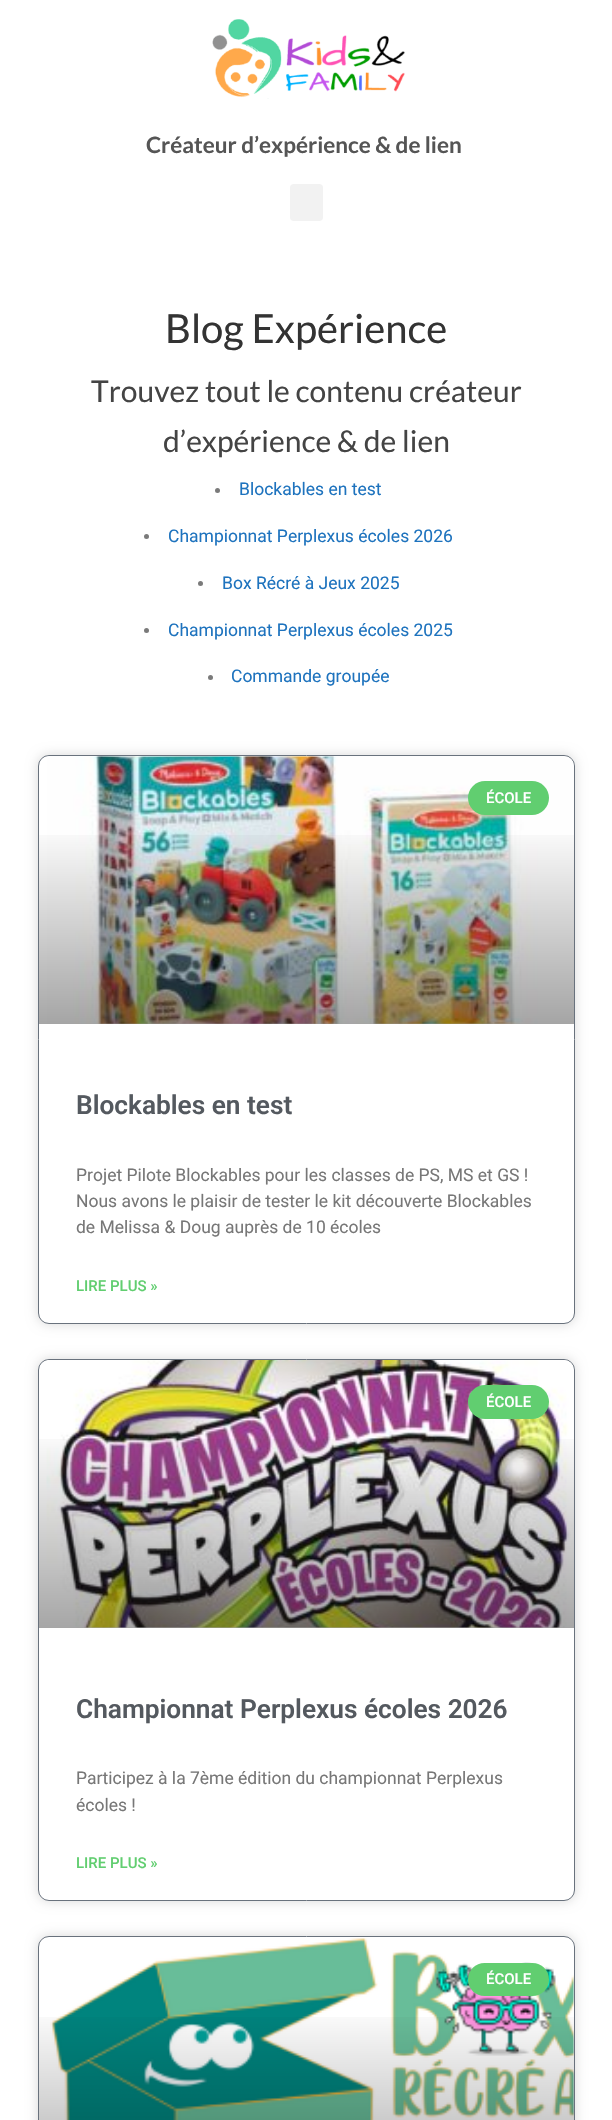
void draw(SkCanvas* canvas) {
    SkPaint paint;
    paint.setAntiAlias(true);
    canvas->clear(0xFFFFFFFF);
    canvas->drawImageRect(SkImages::DeferredFromEncodedData(SkData::MakeFromFileName("img1.png")), SkRect::MakeXYWH(212, 19, 193, 80), SkSamplingOptions());
    SkFont font1(fontMgr->matchFamilyStyle("Lato", SkFontStyle::Bold()), 22.5f);
    font1.setSubpixel(true);
    paint.setColor(0xFF555555);
    canvas->drawString("Créateur d’expérience & de lien", 146, 153, font1, paint);
    paint.setColor(0xFFF2F2F2);
    canvas->drawRoundRect(SkRect::MakeXYWH(290, 184, 33, 37), 4, 4, paint);
    SkFont font2(fontMgr->matchFamilyStyle("Lato", SkFontStyle::Normal()), 40);
    font2.setSubpixel(true);
    paint.setColor(0xFF333333);
    canvas->drawString("Blog Expérience", 165, 343, font2, paint);
    SkFont font3(fontMgr->matchFamilyStyle("Lato", SkFontStyle::Normal()), 30);
    font3.setSubpixel(true);
    paint.setColor(0xFF444444);
    canvas->drawString("Trouvez tout le contenu créateur", 91, 402, font3, paint);
    canvas->drawString("d’expérience & de lien", 163, 452, font3, paint);
    paint.setColor(0xFF7A7A7A);
    canvas->drawCircle(217.5f, 490.5f, 2.5f, paint);
    SkFont font4(fontMgr->matchFamilyStyle("Roboto", SkFontStyle::Normal()), 17.5f);
    font4.setSubpixel(true);
    paint.setColor(0xFF1E73BE);
    canvas->drawString("Blockables en test", 239, 495, font4, paint);
    paint.setColor(0xFF7A7A7A);
    canvas->drawCircle(146.5f, 536.5f, 2.5f, paint);
    paint.setColor(0xFF1E73BE);
    canvas->drawString("Championnat Perplexus écoles 2026", 168, 542, font4, paint);
    paint.setColor(0xFF7A7A7A);
    canvas->drawCircle(200.5f, 583.5f, 2.5f, paint);
    paint.setColor(0xFF1E73BE);
    canvas->drawString("Box Récré à Jeux 2025", 222, 589, font4, paint);
    paint.setColor(0xFF7A7A7A);
    canvas->drawCircle(146.5f, 630.5f, 2.5f, paint);
    paint.setColor(0xFF1E73BE);
    canvas->drawString("Championnat Perplexus écoles 2025", 168, 636, font4, paint);
    paint.setColor(0xFF7A7A7A);
    canvas->drawCircle(210.5f, 677.5f, 2.5f, paint);
    paint.setColor(0xFF1E73BE);
    canvas->drawString("Commande groupée", 231, 682, font4, paint);
    paint.setColor(0x26000000);
    paint.setMaskFilter(SkMaskFilter::MakeBlur(kNormal_SkBlurStyle, 6));
    canvas->drawRoundRect(SkRect::MakeXYWH(38, 755, 537, 569), 11, 11, paint);
    paint.setMaskFilter(nullptr);
    paint.setColor(0xFFFFFFFF);
    canvas->drawRoundRect(SkRect::MakeXYWH(38.5f, 755.5f, 536, 568), 10.5f, 10.5f, paint);
    paint.setStyle(SkPaint::kStroke_Style);
    paint.setStrokeWidth(1);
    paint.setColor(0xFF69727D);
    canvas->drawRoundRect(SkRect::MakeXYWH(38.5f, 755.5f, 536, 568), 10.5f, 10.5f, paint);
    canvas->drawImageRect(SkImages::DeferredFromEncodedData(SkData::MakeFromFileName("img2.png")), SkRect::MakeXYWH(46, 756, 528, 268), SkSamplingOptions());
    paint.setStyle(SkPaint::kFill_Style);
    {
        const SkColor colors[] = {0x59000000, 0x00000000};
        const float stops[] = {0, 0.75f};
        const SkPoint ends[] = {{306, 1024}, {306, 756}};
        paint.setShader(SkGradientShader::MakeLinear(ends, colors, stops, 2, SkTileMode::kClamp));
        paint.setAlpha(255);
    }
    canvas->drawRect(SkRect::MakeXYWH(39, 835, 535, 189), paint);
    paint.setShader(nullptr);
    paint.setColor(0xFF61CE70);
    canvas->drawRoundRect(SkRect::MakeXYWH(468, 781, 81, 34), 17, 17, paint);
    SkFont font5(fontMgr->matchFamilyStyle("Roboto", SkFontStyle(500, SkFontStyle::kNormal_Width, SkFontStyle::kUpright_Slant)), 15);
    font5.setSubpixel(true);
    paint.setColor(0xFFFFFFFF);
    canvas->drawString("ÉCOLE", 486, 803, font5, paint);
    SkFont font6(fontMgr->matchFamilyStyle("Roboto", SkFontStyle(600, SkFontStyle::kNormal_Width, SkFontStyle::kUpright_Slant)), 26.25f);
    font6.setSubpixel(true);
    paint.setColor(0xFF54595F);
    canvas->drawString("Blockables en test", 76, 1114, font6, paint);
    paint.setColor(0xFF777777);
    canvas->drawString("Projet Pilote Blockables pour les classes de PS, MS et GS !", 76, 1181, font4, paint);
    canvas->drawString("Nous avons le plaisir de tester le kit découverte Blockables", 76, 1207, font4, paint);
    canvas->drawString("de Melissa & Doug auprès de 10 écoles", 76, 1233, font4, paint);
    paint.setColor(0xFF61CE70);
    canvas->drawString("LIRE PLUS »", 76, 1291, font5, paint);
    paint.setColor(0x26000000);
    paint.setMaskFilter(SkMaskFilter::MakeBlur(kNormal_SkBlurStyle, 6));
    canvas->drawRoundRect(SkRect::MakeXYWH(38, 1359, 537, 542), 11, 11, paint);
    paint.setMaskFilter(nullptr);
    paint.setColor(0xFFFFFFFF);
    canvas->drawRoundRect(SkRect::MakeXYWH(38.5f, 1359.5f, 536, 541), 10.5f, 10.5f, paint);
    paint.setStyle(SkPaint::kStroke_Style);
    paint.setColor(0xFF69727D);
    canvas->drawRoundRect(SkRect::MakeXYWH(38.5f, 1359.5f, 536, 541), 10.5f, 10.5f, paint);
    canvas->drawImageRect(SkImages::DeferredFromEncodedData(SkData::MakeFromFileName("img3.png")), SkRect::MakeXYWH(46, 1360, 528, 268), SkSamplingOptions());
    paint.setStyle(SkPaint::kFill_Style);
    {
        const SkColor colors[] = {0x59000000, 0x00000000};
        const float stops[] = {0, 0.75f};
        const SkPoint ends[] = {{306, 1628}, {306, 1360}};
        paint.setShader(SkGradientShader::MakeLinear(ends, colors, stops, 2, SkTileMode::kClamp));
        paint.setAlpha(255);
    }
    canvas->drawRect(SkRect::MakeXYWH(39, 1439, 535, 189), paint);
    paint.setShader(nullptr);
    paint.setColor(0xFF61CE70);
    canvas->drawRoundRect(SkRect::MakeXYWH(468, 1385, 81, 34), 17, 17, paint);
    paint.setColor(0xFFFFFFFF);
    canvas->drawString("ÉCOLE", 486, 1407, font5, paint);
    paint.setColor(0xFF54595F);
    canvas->drawString("Championnat Perplexus écoles 2026", 76, 1718, font6, paint);
    paint.setColor(0xFF777777);
    canvas->drawString("Participez à la 7ème édition du championnat Perplexus", 76, 1784, font4, paint);
    canvas->drawString("écoles !", 76, 1811, font4, paint);
    paint.setColor(0xFF61CE70);
    canvas->drawString("LIRE PLUS »", 76, 1868, font5, paint);
    paint.setColor(0x26000000);
    paint.setMaskFilter(SkMaskFilter::MakeBlur(kNormal_SkBlurStyle, 6));
    canvas->drawRoundRect(SkRect::MakeXYWH(38, 1936, 537, 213), 11, 11, paint);
    paint.setMaskFilter(nullptr);
    paint.setColor(0xFFFFFFFF);
    canvas->drawRoundRect(SkRect::MakeXYWH(38.5f, 1936.5f, 536, 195), 10.5f, 10.5f, paint);
    paint.setStyle(SkPaint::kStroke_Style);
    paint.setColor(0xFF69727D);
    canvas->drawRoundRect(SkRect::MakeXYWH(38.5f, 1936.5f, 536, 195), 10.5f, 10.5f, paint);
    canvas->drawImageRect(SkImages::DeferredFromEncodedData(SkData::MakeFromFileName("img4.png")), SkRect::MakeXYWH(50, 1938, 524, 182), SkSamplingOptions());
    paint.setStyle(SkPaint::kFill_Style);
    {
        const SkColor colors[] = {0x59000000, 0x00000000};
        const float stops[] = {0, 0.75f};
        const SkPoint ends[] = {{306, 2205}, {306, 1938}};
        paint.setShader(SkGradientShader::MakeLinear(ends, colors, stops, 2, SkTileMode::kClamp));
        paint.setAlpha(255);
    }
    canvas->drawRect(SkRect::MakeXYWH(39, 2017, 535, 103), paint);
    paint.setShader(nullptr);
    paint.setColor(0xFF61CE70);
    canvas->drawRoundRect(SkRect::MakeXYWH(468, 1963, 81, 33), 16.5f, 16.5f, paint);
    paint.setColor(0xFFFFFFFF);
    canvas->drawString("ÉCOLE", 486, 1984, font5, paint);
}
